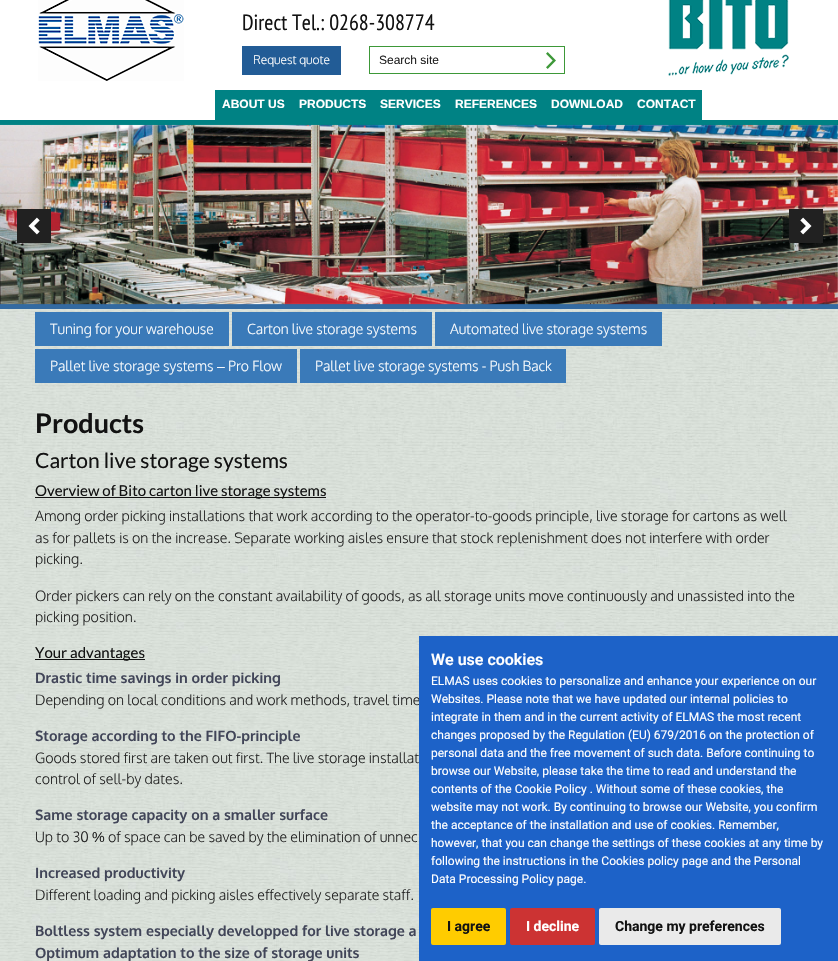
void draw(SkCanvas* canvas) {
    SkPaint paint;
    paint.setAntiAlias(true);
    canvas->clear(0xFFFFFFFF);
    canvas->drawImageRect(SkImages::DeferredFromEncodedData(SkData::MakeFromFileName("img1.png")), SkRect::MakeXYWH(0, 125, 838, 836), SkSamplingOptions());
    paint.setColor(0xFF008284);
    canvas->drawRect(SkRect::MakeXYWH(0, 120, 838, 5), paint);
    canvas->drawImageRect(SkImages::DeferredFromEncodedData(SkData::MakeFromFileName("img2.png")), SkRect::MakeXYWH(38, 0, 146, 81), SkSamplingOptions());
    SkFont font1(fontMgr->matchFamilyStyle("PT Sans Narrow", SkFontStyle::Normal()), 22);
    font1.setSubpixel(true);
    paint.setColor(0xFF121212);
    canvas->drawString("Direct Tel.: 0268-308774", 242, 30, font1, paint);
    paint.setColor(0xFF225C96);
    canvas->drawRect(SkRect::MakeXYWH(242, 46, 99, 29), paint);
    SkFont font2(fontMgr->matchFamilyStyle("Oxygen", SkFontStyle(300, SkFontStyle::kNormal_Width, SkFontStyle::kUpright_Slant)), 12);
    font2.setSubpixel(true);
    paint.setColor(0xFFFFFFFF);
    canvas->drawString("Request quote", 253, 64, font2, paint);
    paint.setStyle(SkPaint::kStroke_Style);
    paint.setStrokeWidth(1);
    paint.setColor(0xFF3D9838);
    canvas->drawRect(SkRect::MakeXYWH(369.5f, 46.5f, 195, 27), paint);
    SkFont font3(fontMgr->matchFamilyStyle("Liberation Sans", SkFontStyle::Normal()), 12);
    font3.setSubpixel(true);
    paint.setStyle(SkPaint::kFill_Style);
    paint.setColor(0xFF212121);
    canvas->drawString("Search site", 379, 64, font3, paint);
    canvas->drawImageRect(SkImages::DeferredFromEncodedData(SkData::MakeFromFileName("img3.png")), SkRect::MakeXYWH(546, 52, 10, 17), SkSamplingOptions());
    canvas->drawImageRect(SkImages::DeferredFromEncodedData(SkData::MakeFromFileName("img4.png")), SkRect::MakeXYWH(668, 0, 121, 76), SkSamplingOptions());
    paint.setColor(0xFF008284);
    canvas->drawRect(SkRect::MakeXYWH(215, 90, 487, 30), paint);
    SkFont font4(fontMgr->matchFamilyStyle("Liberation Sans", SkFontStyle::Bold()), 12);
    font4.setSubpixel(true);
    paint.setColor(0xFFFFFFFF);
    canvas->drawString("ABOUT US", 222, 108, font4, paint);
    canvas->drawString("PRODUCTS", 299, 108, font4, paint);
    canvas->drawString("SERVICES", 380, 108, font4, paint);
    canvas->drawString("REFERENCES", 455, 108, font4, paint);
    canvas->drawString("DOWNLOAD", 551, 108, font4, paint);
    canvas->drawString("CONTACT", 637, 108, font4, paint);
    paint.setColor(0xFF336AA1);
    canvas->drawRect(SkRect::MakeXYWH(0, 304, 838, 5), paint);
    canvas->drawImageRect(SkImages::DeferredFromEncodedData(SkData::MakeFromFileName("img5.png")), SkRect::MakeXYWH(0, 124, 838, 181), SkSamplingOptions());
    canvas->drawImageRect(SkImages::DeferredFromEncodedData(SkData::MakeFromFileName("img6.png")), SkRect::MakeXYWH(17, 209, 34, 34), SkSamplingOptions());
    canvas->drawImageRect(SkImages::DeferredFromEncodedData(SkData::MakeFromFileName("img7.png")), SkRect::MakeXYWH(789, 209, 34, 34), SkSamplingOptions());
    paint.setColor(0xFF3A7AB9);
    canvas->drawRect(SkRect::MakeXYWH(35, 312, 194, 34), paint);
    SkFont font5(fontMgr->matchFamilyStyle("Oxygen", SkFontStyle(300, SkFontStyle::kNormal_Width, SkFontStyle::kUpright_Slant)), 14);
    font5.setSubpixel(true);
    paint.setColor(0xFFFFFFFF);
    canvas->drawString("Tuning for your warehouse", 50, 334, font5, paint);
    paint.setColor(0xFF3A7AB9);
    canvas->drawRect(SkRect::MakeXYWH(232, 312, 200, 34), paint);
    paint.setColor(0xFFFFFFFF);
    canvas->drawString("Carton live storage systems", 247, 334, font5, paint);
    paint.setColor(0xFF3A7AB9);
    canvas->drawRect(SkRect::MakeXYWH(435, 312, 227, 34), paint);
    paint.setColor(0xFFFFFFFF);
    canvas->drawString("Automated live storage systems", 450, 334, font5, paint);
    paint.setColor(0xFF3A7AB9);
    canvas->drawRect(SkRect::MakeXYWH(35, 349, 262, 34), paint);
    paint.setColor(0xFFFFFFFF);
    canvas->drawString("Pallet live storage systems", 50, 371, font5, paint);
    SkFont font6(fontMgr->matchFamilyStyle("Liberation Sans", SkFontStyle::Normal()), 14);
    font6.setSubpixel(true);
    canvas->drawString("–", 217, 371, font6, paint);
    canvas->drawString("Pro Flow", 228, 371, font5, paint);
    paint.setColor(0xFF3A7AB9);
    canvas->drawRect(SkRect::MakeXYWH(300, 349, 266, 34), paint);
    paint.setColor(0xFFFFFFFF);
    canvas->drawString("Pallet live storage systems - Push Back", 315, 371, font5, paint);
    SkFont font7(fontMgr->matchFamilyStyle("Lato", SkFontStyle::Bold()), 27);
    font7.setSubpixel(true);
    paint.setColor(0xFF121212);
    canvas->drawString("Products", 35, 433, font7, paint);
    SkFont font8(fontMgr->matchFamilyStyle("Lato", SkFontStyle::Normal()), 21);
    font8.setSubpixel(true);
    canvas->drawString("Carton live storage systems", 35, 468, font8, paint);
    canvas->drawRect(SkRect::MakeXYWH(35, 497, 291, 1), paint);
    SkFont font9(fontMgr->matchFamilyStyle("Lato", SkFontStyle::Normal()), 15);
    font9.setSubpixel(true);
    canvas->drawString("Overview of Bito carton live storage systems", 35, 496, font9, paint);
    SkFont font10(fontMgr->matchFamilyStyle("Oxygen", SkFontStyle(300, SkFontStyle::kNormal_Width, SkFontStyle::kUpright_Slant)), 14.27f);
    font10.setSubpixel(true);
    paint.setColor(0xFF212121);
    canvas->drawString("Among order picking installations that work according to the operator-to-goods principle, live storage for cartons as well", 35, 521, font10, paint);
    canvas->drawString("as for pallets is on the increase. Separate working aisles ensure that stock replenishment does not interfere with order", 35, 543, font10, paint);
    canvas->drawString("picking.", 35, 564, font10, paint);
    canvas->drawString("Order pickers can rely on the constant availability of goods, as all storage units move continuously and unassisted into the", 35, 601, font10, paint);
    canvas->drawString("picking position.", 35, 622, font10, paint);
    paint.setColor(0xFF121212);
    canvas->drawRect(SkRect::MakeXYWH(35, 659, 110, 1), paint);
    canvas->drawString("Your advantages", 35, 658, font9, paint);
    SkFont font11(fontMgr->matchFamilyStyle("Oxygen", SkFontStyle::Bold()), 14.27f);
    font11.setSubpixel(true);
    paint.setColor(0xFF414558);
    canvas->drawString("Drastic time savings in order picking", 35, 683, font11, paint);
    paint.setColor(0xFF212121);
    canvas->drawString("Depending on local conditions and work methods, travel time", 35, 705, font10, paint);
    paint.setColor(0xFF414558);
    canvas->drawString("Storage according to the FIFO-principle", 35, 741, font11, paint);
    paint.setColor(0xFF212121);
    canvas->drawString("Goods stored first are taken out first. The live storage installat", 35, 763, font10, paint);
    canvas->drawString("control of sell-by dates.", 35, 784, font10, paint);
    paint.setColor(0xFF414558);
    canvas->drawString("Same storage capacity on a smaller surface", 35, 820, font11, paint);
    paint.setColor(0xFF212121);
    canvas->drawString("Up to 30", 35, 842, font10, paint);
    SkFont font12(fontMgr->matchFamilyStyle("Liberation Sans", SkFontStyle::Normal()), 14.27f);
    font12.setSubpixel(true);
    canvas->drawString("%", 92, 842, font12, paint);
    canvas->drawString("of space can be saved by the elimination of unnec", 108, 842, font10, paint);
    paint.setColor(0xFF414558);
    canvas->drawString("Increased productivity", 35, 878, font11, paint);
    paint.setColor(0xFF212121);
    canvas->drawString("Different loading and picking aisles effectively separate staff.", 35, 900, font10, paint);
    paint.setColor(0xFF414558);
    canvas->drawString("Boltless system especially developped for live storage a", 35, 936, font11, paint);
    canvas->drawString("Optimum adaptation to the size of storage units", 35, 958, font11, paint);
    paint.setColor(0xFF1D62C8);
    canvas->drawRect(SkRect::MakeXYWH(419, 636, 419, 325), paint);
    SkFont font13(fontMgr->matchFamilyStyle("Roboto", SkFontStyle(600, SkFontStyle::kNormal_Width, SkFontStyle::kUpright_Slant)), 16);
    font13.setSubpixel(true);
    paint.setColor(0xFFFFFFFF);
    canvas->drawString("We use cookies", 431, 665, font13, paint);
    SkFont font14(fontMgr->matchFamilyStyle("Roboto", SkFontStyle::Normal()), 12);
    font14.setSubpixel(true);
    canvas->drawString("ELMAS uses cookies to personalize and enhance your experience on our", 431, 685, font14, paint);
    canvas->drawString("Websites. Please note that we have updated our internal policies to", 431, 703, font14, paint);
    canvas->drawString("integrate in them and in the current activity of ELMAS the most recent", 431, 721, font14, paint);
    canvas->drawString("changes proposed by the Regulation (EU) 679/2016 on the protection of", 431, 739, font14, paint);
    canvas->drawString("personal data and the free movement of such data. Before continuing to", 431, 757, font14, paint);
    canvas->drawString("browse our Website, please take the time to read and understand the", 431, 775, font14, paint);
    canvas->drawString("contents of the Cookie Policy . Without some of these cookies, the", 431, 793, font14, paint);
    canvas->drawString("website may not work. By continuing to browse our Website, you confirm", 431, 811, font14, paint);
    canvas->drawString("the acceptance of the installation and use of cookies. Remember,", 431, 829, font14, paint);
    canvas->drawString("however, that you can change the settings of these cookies at any time by", 431, 847, font14, paint);
    canvas->drawString("following the instructions in the Cookies policy page and the Personal", 431, 865, font14, paint);
    canvas->drawString("Data Processing Policy page.", 431, 883, font14, paint);
    paint.setColor(0xFFFFCC00);
    canvas->drawRoundRect(SkRect::MakeXYWH(431, 908, 75, 37), 2, 2, paint);
    SkFont font15(fontMgr->matchFamilyStyle("Roboto", SkFontStyle::Bold()), 14);
    font15.setSubpixel(true);
    paint.setColor(0xFF121212);
    canvas->drawString("I agree", 447, 931, font15, paint);
    paint.setColor(0xFFCC3333);
    canvas->drawRoundRect(SkRect::MakeXYWH(510, 908, 85, 37), 2, 2, paint);
    paint.setColor(0xFFFFFFFF);
    canvas->drawString("I decline", 526, 931, font15, paint);
    paint.setColor(0xFFEAEAEA);
    canvas->drawRoundRect(SkRect::MakeXYWH(599, 908, 182, 37), 2, 2, paint);
    paint.setColor(0xFF121212);
    canvas->drawString("Change my preferences", 615, 931, font15, paint);
}
